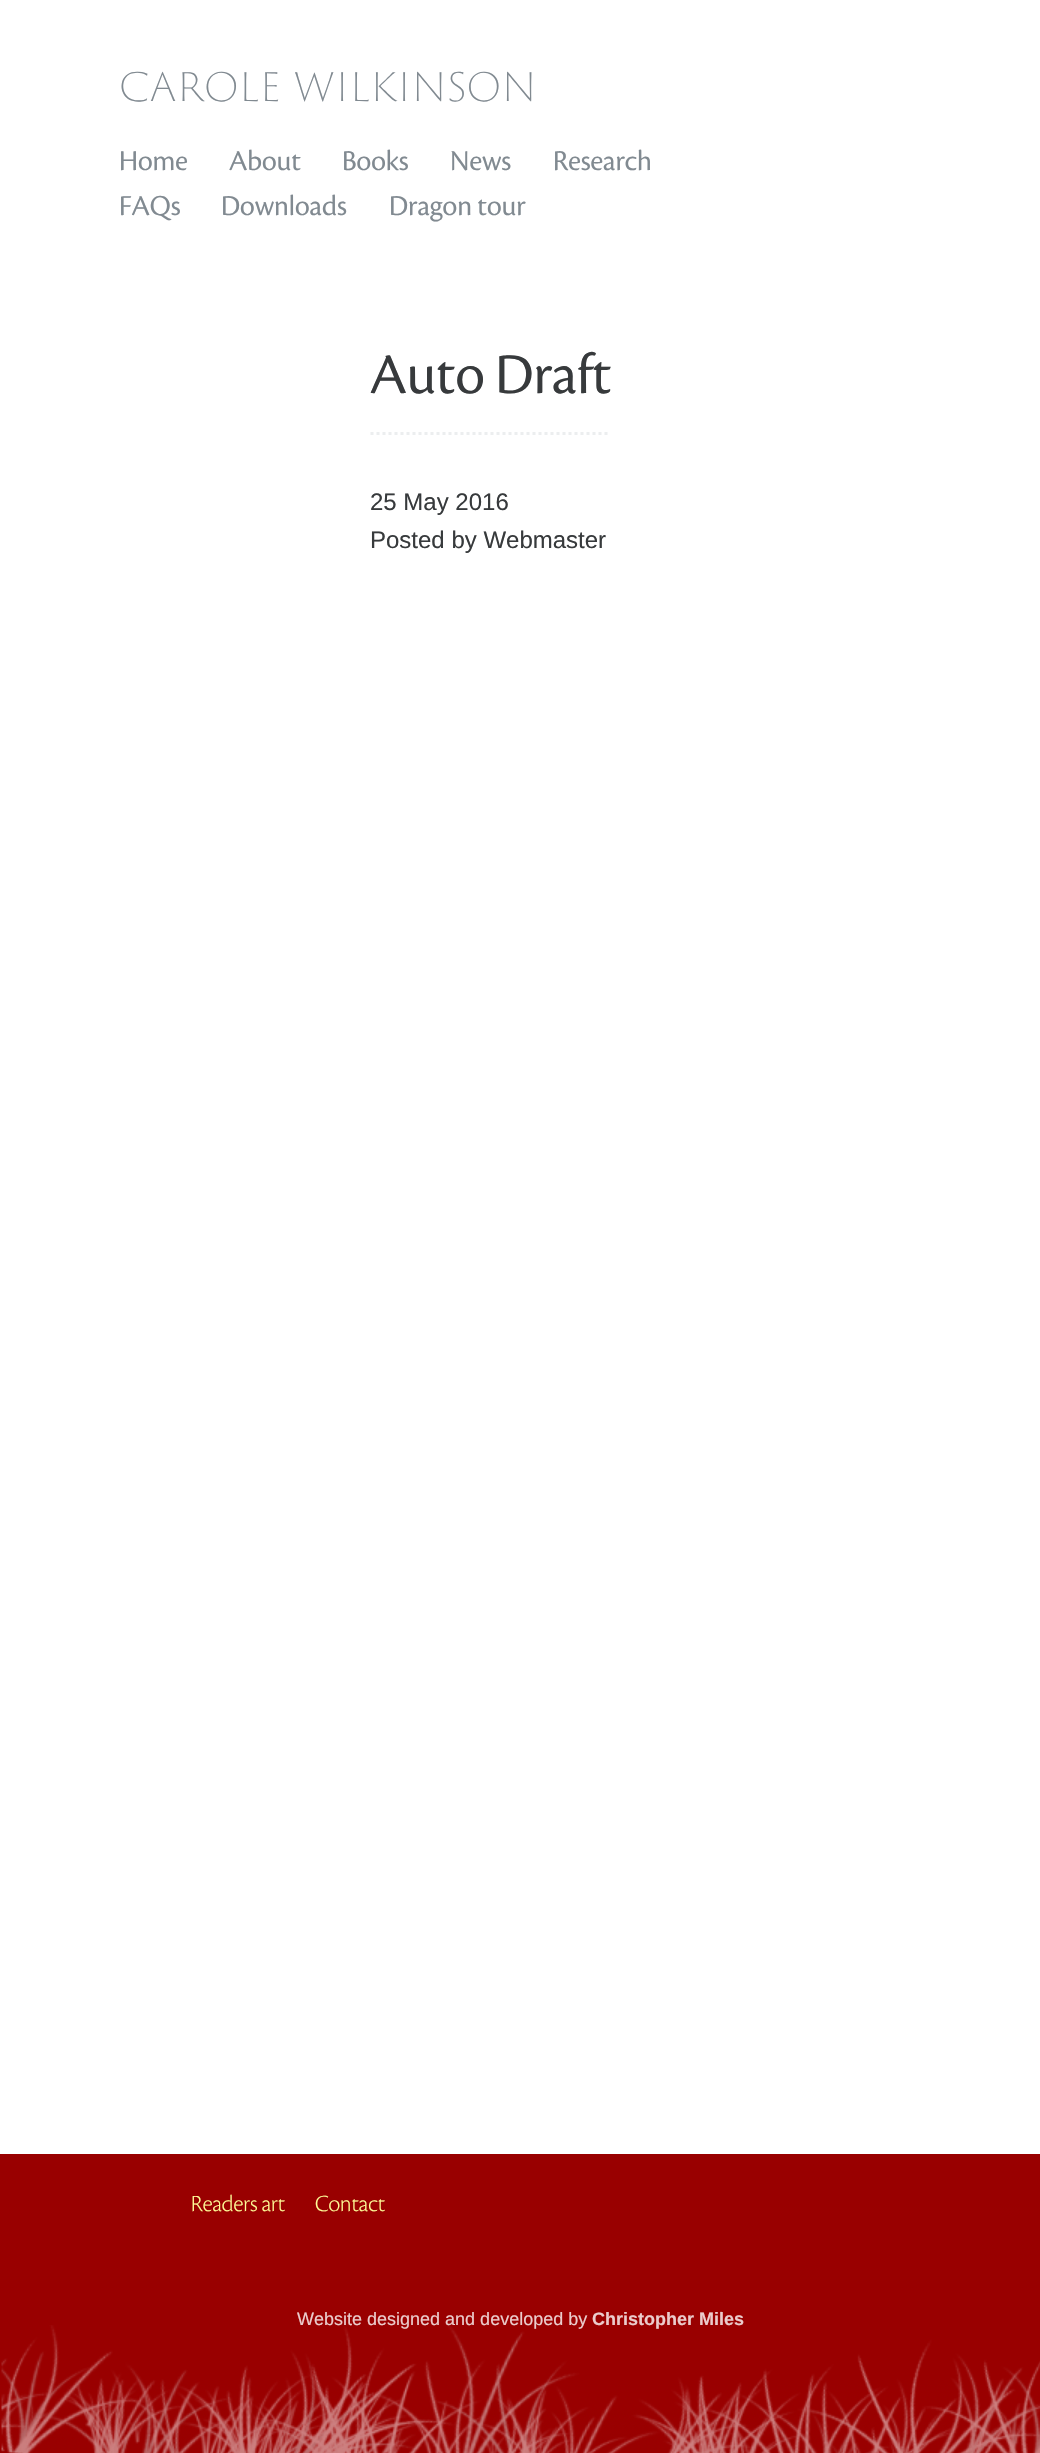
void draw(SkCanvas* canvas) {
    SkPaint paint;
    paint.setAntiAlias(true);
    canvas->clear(0xFFFFFFFF);
    SkFont font1(fontMgr->matchFamilyStyle("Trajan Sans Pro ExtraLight", SkFontStyle(200, SkFontStyle::kNormal_Width, SkFontStyle::kUpright_Slant)), 45);
    font1.setSubpixel(true);
    paint.setColor(0xFF818A91);
    canvas->drawString("carole wilkinson", 119, 101, font1, paint);
    SkFont font2(fontMgr->matchFamilyStyle("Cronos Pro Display", SkFontStyle::Normal()), 30);
    font2.setSubpixel(true);
    canvas->drawString("Home", 119, 170, font2, paint);
    canvas->drawString("About", 229, 170, font2, paint);
    canvas->drawString("Books", 342, 170, font2, paint);
    canvas->drawString("News", 450, 170, font2, paint);
    canvas->drawString("Research", 553, 170, font2, paint);
    canvas->drawString("FAQs", 119, 215, font2, paint);
    canvas->drawString("Downloads", 221, 215, font2, paint);
    canvas->drawString("Dragon tour", 389, 215, font2, paint);
    paint.setStyle(SkPaint::kStroke_Style);
    paint.setStrokeWidth(3);
    paint.setColor(0xFFECEEEF);
    paint.setPathEffect(SkDashPathEffect::Make({{3, 3}}, 0));
    canvas->drawPath(SkPathBuilder().moveTo(370.5f, 433.5f).lineTo(610.5f, 433.5f).detach(), paint);
    paint.setPathEffect(nullptr);
    SkFont font3(fontMgr->matchFamilyStyle("Cronos Pro Display", SkFontStyle::Normal()), 60);
    font3.setSubpixel(true);
    paint.setStyle(SkPaint::kFill_Style);
    paint.setColor(0xFF373A3C);
    canvas->drawString("Auto Draft", 370, 393, font3, paint);
    SkFont font4(fontMgr->matchFamilyStyle("Liberation Sans", SkFontStyle::Normal()), 24);
    font4.setSubpixel(true);
    canvas->drawString("25 May 2016", 370, 510, font4, paint);
    canvas->drawString("Posted by Webmaster", 370, 548, font4, paint);
    paint.setColor(0xFF990000);
    canvas->drawRect(SkRect::MakeXYWH(0, 2154, 1040, 299), paint);
    canvas->drawImageRect(SkImages::DeferredFromEncodedData(SkData::MakeFromFileName("img1.png")), SkRect::MakeXYWH(1, 2325, 1039, 128), SkSamplingOptions());
    SkFont font5(fontMgr->matchFamilyStyle("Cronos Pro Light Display", SkFontStyle(300, SkFontStyle::kNormal_Width, SkFontStyle::kUpright_Slant)), 24);
    font5.setSubpixel(true);
    paint.setColor(0xFFFFFF99);
    canvas->drawString("Readers art", 191, 2211, font5, paint);
    canvas->drawString("Contact", 315, 2211, font5, paint);
    SkFont font6(fontMgr->matchFamilyStyle("Liberation Sans", SkFontStyle::Normal()), 18);
    font6.setSubpixel(true);
    paint.setColor(0xFFEBCCCC);
    canvas->drawString("Website designed and developed by", 297, 2325, font6, paint);
    SkFont font7(fontMgr->matchFamilyStyle("Liberation Sans", SkFontStyle::Bold()), 18);
    font7.setSubpixel(true);
    canvas->drawString("Christopher Miles", 592, 2325, font7, paint);
}
